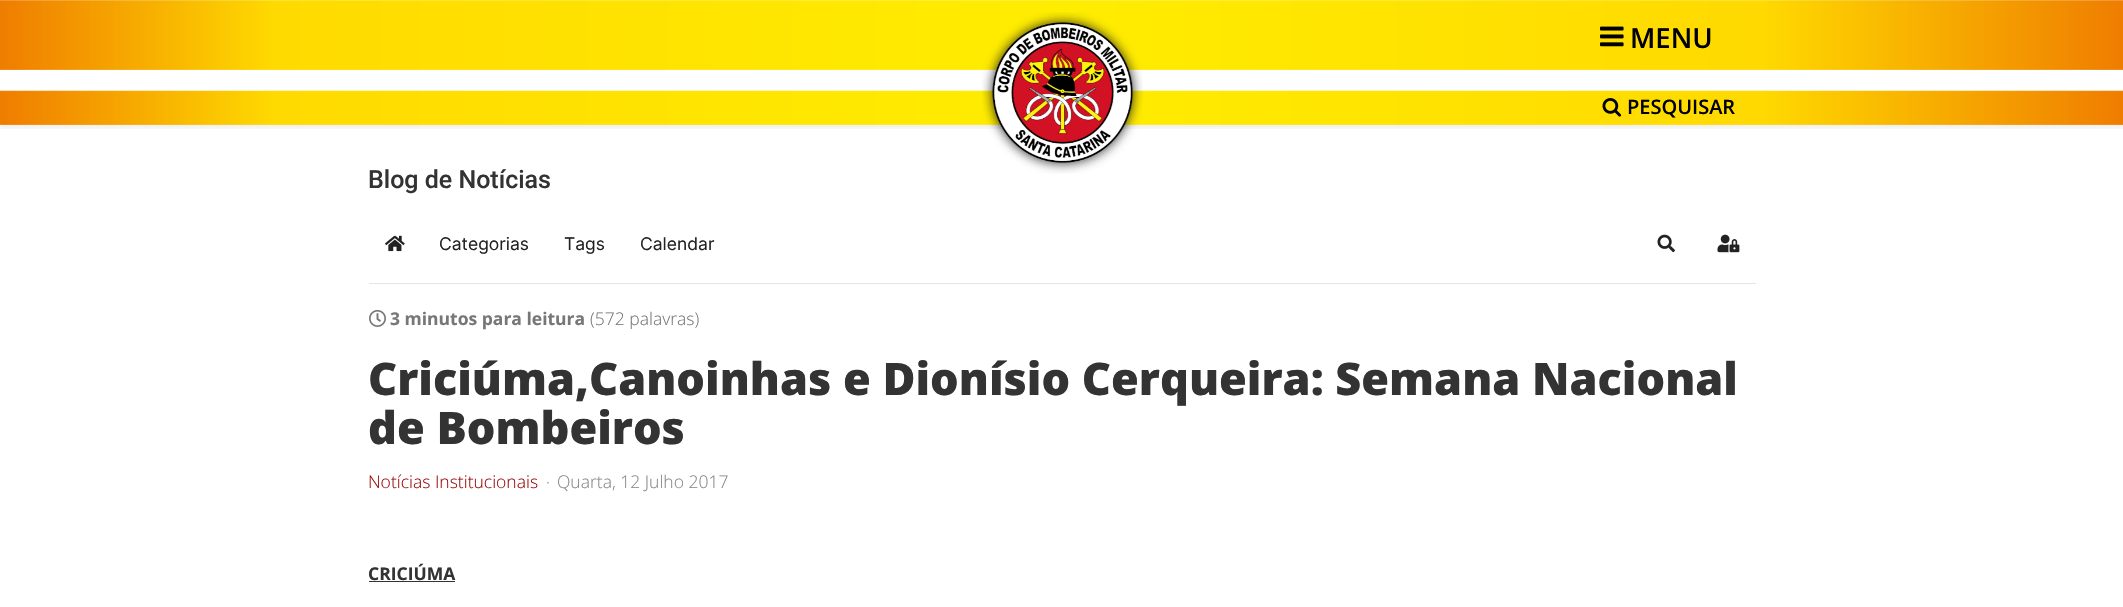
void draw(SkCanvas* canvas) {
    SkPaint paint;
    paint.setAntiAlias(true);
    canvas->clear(0xFFFFFFFF);
    canvas->save();
    canvas->clipRect(SkRect::MakeXYWH(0, 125, 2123, 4));
    paint.setColor(0x0D000000);
    paint.setMaskFilter(SkMaskFilter::MakeBlur(kNormal_SkBlurStyle, 2));
    canvas->drawRect(SkRect::MakeXYWH(0, 4, 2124, 125), paint);
    paint.setMaskFilter(nullptr);
    canvas->restore();
    canvas->drawImageRect(SkImages::DeferredFromEncodedData(SkData::MakeFromFileName("img1.png")), SkRect::MakeXYWH(0, 0, 2123, 125), SkSamplingOptions());
    canvas->drawImageRect(SkImages::DeferredFromEncodedData(SkData::MakeFromFileName("img2.png")), SkRect::MakeXYWH(982, 12, 161, 162), SkSamplingOptions());
    canvas->drawImageRect(SkImages::DeferredFromEncodedData(SkData::MakeFromFileName("img3.png")), SkRect::MakeXYWH(1600, 26, 24, 21), SkSamplingOptions());
    SkFont font1(fontMgr->matchFamilyStyle("Open Sans", SkFontStyle(600, SkFontStyle::kNormal_Width, SkFontStyle::kUpright_Slant)), 27.5f);
    font1.setSubpixel(true);
    paint.setColor(0xFF000000);
    canvas->drawString("MENU", 1630, 48, font1, paint);
    canvas->drawImageRect(SkImages::DeferredFromEncodedData(SkData::MakeFromFileName("img4.png")), SkRect::MakeXYWH(1602, 98, 20, 19), SkSamplingOptions());
    SkFont font2(fontMgr->matchFamilyStyle("Open Sans", SkFontStyle(600, SkFontStyle::kNormal_Width, SkFontStyle::kUpright_Slant)), 20);
    font2.setSubpixel(true);
    canvas->drawString("PESQUISAR", 1627, 114, font2, paint);
    SkFont font3(fontMgr->matchFamilyStyle("Roboto", SkFontStyle(500, SkFontStyle::kNormal_Width, SkFontStyle::kUpright_Slant)), 25);
    font3.setSubpixel(true);
    paint.setColor(0xFF333333);
    canvas->drawString("Blog de Notícias", 368, 188, font3, paint);
    canvas->drawImageRect(SkImages::DeferredFromEncodedData(SkData::MakeFromFileName("img5.png")), SkRect::MakeXYWH(385, 235, 20, 17), SkSamplingOptions());
    SkFont font4(fontMgr->matchFamilyStyle("Inter", SkFontStyle::Normal()), 17.5f);
    font4.setSubpixel(true);
    paint.setColor(0xFF222222);
    canvas->drawString("Categorias", 439, 250, font4, paint);
    canvas->drawString("Tags", 564, 250, font4, paint);
    canvas->drawString("Calendar", 640, 250, font4, paint);
    canvas->drawImageRect(SkImages::DeferredFromEncodedData(SkData::MakeFromFileName("img6.png")), SkRect::MakeXYWH(1657, 234, 18, 19), SkSamplingOptions());
    canvas->drawImageRect(SkImages::DeferredFromEncodedData(SkData::MakeFromFileName("img7.png")), SkRect::MakeXYWH(1717, 234, 23, 19), SkSamplingOptions());
    paint.setColor(0xFFE5E5E5);
    canvas->drawRect(SkRect::MakeXYWH(369, 283, 1387, 1), paint);
    canvas->drawImageRect(SkImages::DeferredFromEncodedData(SkData::MakeFromFileName("img8.png")), SkRect::MakeXYWH(369, 310, 17, 17), SkSamplingOptions());
    SkFont font5(fontMgr->matchFamilyStyle("Open Sans", SkFontStyle::Bold()), 17.5f);
    font5.setSubpixel(true);
    paint.setColor(0xFF777777);
    canvas->drawString("3 minutos para leitura", 390, 325, font5, paint);
    SkFont font6(fontMgr->matchFamilyStyle("Open Sans", SkFontStyle(300, SkFontStyle::kNormal_Width, SkFontStyle::kUpright_Slant)), 17.5f);
    font6.setSubpixel(true);
    canvas->drawString("(572 palavras)", 590, 325, font6, paint);
    SkFont font7(fontMgr->matchFamilyStyle("Open Sans", SkFontStyle(800, SkFontStyle::kNormal_Width, SkFontStyle::kUpright_Slant)), 45);
    font7.setSubpixel(true);
    paint.setColor(0xFF333333);
    canvas->drawString("Criciúma,Canoinhas e Dionísio Cerqueira: Semana Nacional", 368, 395, font7, paint);
    canvas->drawString("de Bombeiros", 368, 444, font7, paint);
    paint.setColor(0xFF9B0E0E);
    canvas->drawString("Notícias Institucionais", 368, 488, font6, paint);
    SkFont font8(fontMgr->matchFamilyStyle("Open Sans", SkFontStyle(300, SkFontStyle::kNormal_Width, SkFontStyle::kUpright_Slant)), 16);
    font8.setSubpixel(true);
    paint.setColor(0xFF888888);
    canvas->drawString("·", 546, 488, font8, paint);
    canvas->drawString("Quarta, 12 Julho 2017", 557, 488, font6, paint);
    paint.setColor(0xFF333333);
    canvas->drawString("CRICIÚMA", 368, 580, font5, paint);
    canvas->drawRect(SkRect::MakeXYWH(369, 581, 86, 1), paint);
}
